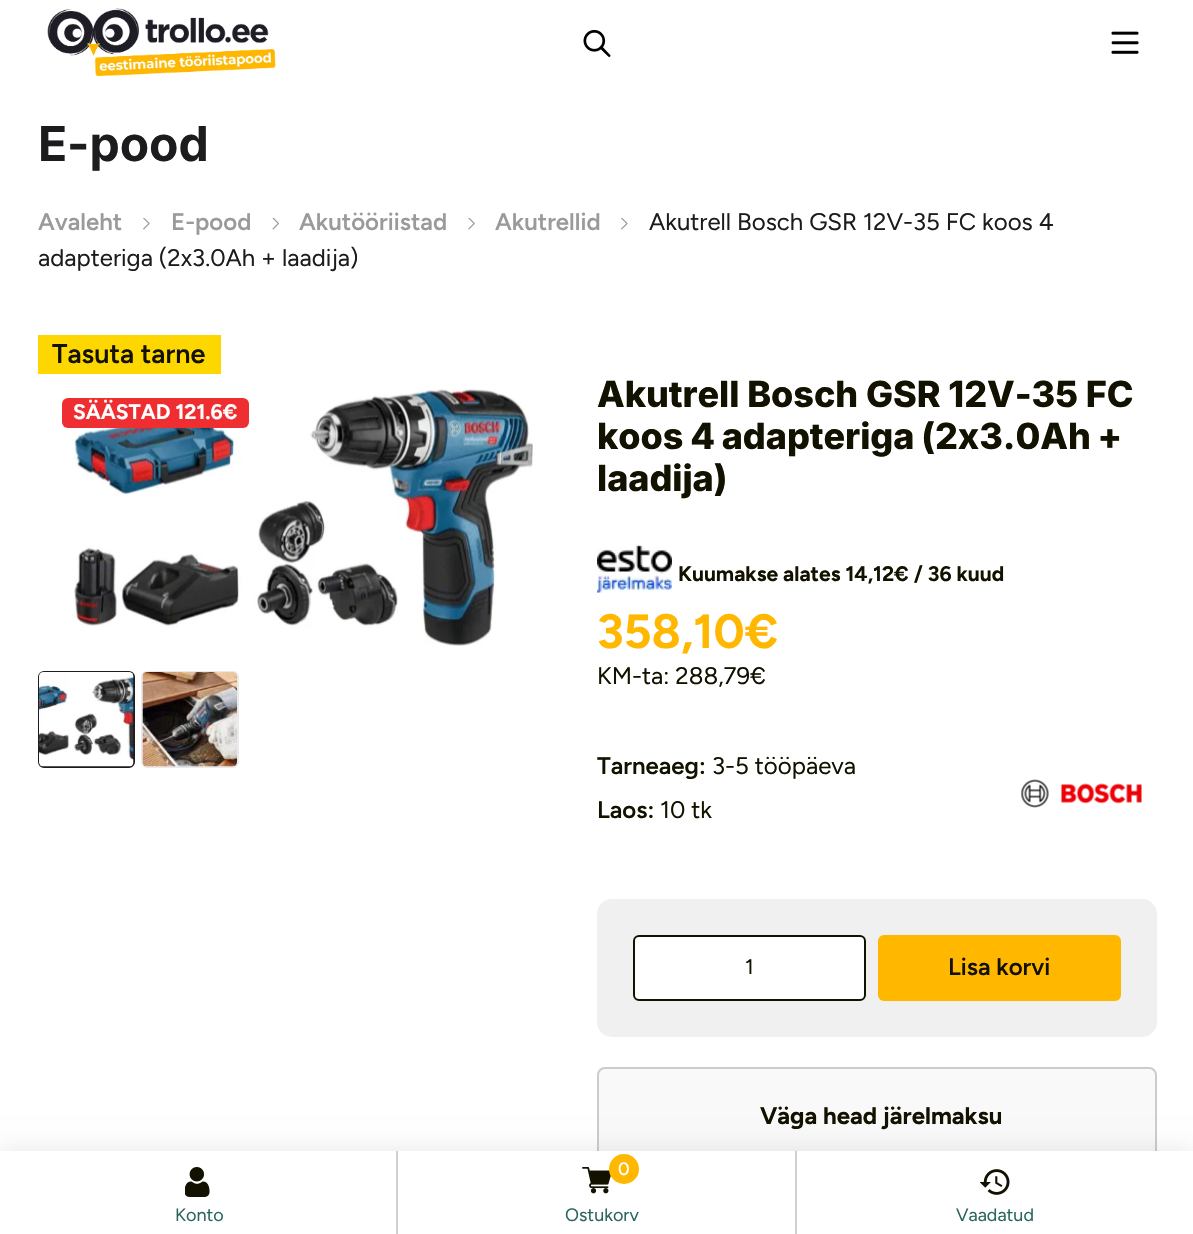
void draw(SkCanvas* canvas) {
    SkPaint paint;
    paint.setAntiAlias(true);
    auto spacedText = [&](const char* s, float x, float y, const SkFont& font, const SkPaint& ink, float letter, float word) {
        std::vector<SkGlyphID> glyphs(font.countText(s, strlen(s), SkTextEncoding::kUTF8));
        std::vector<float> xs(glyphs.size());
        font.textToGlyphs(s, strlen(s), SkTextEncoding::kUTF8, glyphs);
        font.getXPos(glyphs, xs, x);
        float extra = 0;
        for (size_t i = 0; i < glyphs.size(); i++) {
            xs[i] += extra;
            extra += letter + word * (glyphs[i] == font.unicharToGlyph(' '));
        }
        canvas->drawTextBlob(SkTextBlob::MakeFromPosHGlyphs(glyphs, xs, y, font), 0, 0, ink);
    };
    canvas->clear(0xFFFFFFFF);
    SkFont font1(fontMgr->matchFamilyStyle("Inter", SkFontStyle::Bold()), 48);
    font1.setSubpixel(true);
    paint.setColor(0xFF1C1C1E);
    spacedText("E-pood", 38, 161, font1, paint, -0.05f, 0);
    SkFont font2(fontMgr->matchFamilyStyle("Figtree", SkFontStyle(600, SkFontStyle::kNormal_Width, SkFontStyle::kUpright_Slant)), 24);
    font2.setSubpixel(true);
    paint.setColor(0xFF9A9A9A);
    canvas->drawString("Avaleht", 38, 230, font2, paint);
    canvas->drawImageRect(SkImages::DeferredFromEncodedData(SkData::MakeFromFileName("img1.png")), SkRect::MakeXYWH(143, 218, 7, 12), SkSamplingOptions());
    canvas->drawString("E-pood", 171, 230, font2, paint);
    canvas->drawImageRect(SkImages::DeferredFromEncodedData(SkData::MakeFromFileName("img2.png")), SkRect::MakeXYWH(272, 218, 7, 12), SkSamplingOptions());
    canvas->drawString("Akutööriistad", 299, 230, font2, paint);
    canvas->drawImageRect(SkImages::DeferredFromEncodedData(SkData::MakeFromFileName("img3.png")), SkRect::MakeXYWH(468, 218, 7, 12), SkSamplingOptions());
    canvas->drawString("Akutrellid", 495, 230, font2, paint);
    canvas->drawImageRect(SkImages::DeferredFromEncodedData(SkData::MakeFromFileName("img4.png")), SkRect::MakeXYWH(621, 218, 7, 12), SkSamplingOptions());
    SkFont font3(fontMgr->matchFamilyStyle("Figtree", SkFontStyle(300, SkFontStyle::kNormal_Width, SkFontStyle::kUpright_Slant)), 24);
    font3.setSubpixel(true);
    paint.setColor(0xFF1C1C1E);
    canvas->drawString("Akutrell Bosch GSR 12V-35 FC koos 4", 649, 230, font3, paint);
    canvas->drawString("adapteriga (2x3.0Ah + laadija)", 38, 266, font3, paint);
    paint.setColor(0xFFFED700);
    canvas->drawRect(SkRect::MakeXYWH(38, 335, 183, 39), paint);
    SkFont font4(fontMgr->matchFamilyStyle("Figtree", SkFontStyle(600, SkFontStyle::kNormal_Width, SkFontStyle::kUpright_Slant)), 27);
    font4.setSubpixel(true);
    paint.setColor(0xFF131200);
    canvas->drawString("Tasuta tarne", 52, 363, font4, paint);
    canvas->drawImageRect(SkImages::DeferredFromEncodedData(SkData::MakeFromFileName("img5.png")), SkRect::MakeXYWH(71, 389, 462, 257), SkSamplingOptions());
    paint.setStyle(SkPaint::kStroke_Style);
    paint.setStrokeWidth(2);
    paint.setColor(0xFF1C1C1E);
    canvas->drawRoundRect(SkRect::MakeXYWH(39, 672, 95, 95), 5, 5, paint);
    canvas->drawImageRect(SkImages::DeferredFromEncodedData(SkData::MakeFromFileName("img6.png")), SkRect::MakeXYWH(39, 672, 95, 95), SkSamplingOptions());
    paint.setColor(0xFFEAEAEA);
    canvas->drawRoundRect(SkRect::MakeXYWH(142, 672, 96, 95), 5, 5, paint);
    canvas->drawImageRect(SkImages::DeferredFromEncodedData(SkData::MakeFromFileName("img7.png")), SkRect::MakeXYWH(142, 672, 95, 95), SkSamplingOptions());
    SkFont font5(fontMgr->matchFamilyStyle("Inter", SkFontStyle(800, SkFontStyle::kNormal_Width, SkFontStyle::kUpright_Slant)), 36);
    font5.setSubpixel(true);
    paint.setStyle(SkPaint::kFill_Style);
    paint.setColor(0xFF131200);
    spacedText("Akutrell Bosch GSR 12V-35 FC", 597, 407, font5, paint, -0.05f, 0);
    spacedText("koos 4 adapteriga (2x3.0Ah +", 597, 449, font5, paint, -0.05f, -1);
    spacedText("laadija)", 597, 491, font5, paint, -0.05f, 0);
    canvas->drawImageRect(SkImages::DeferredFromEncodedData(SkData::MakeFromFileName("img8.png")), SkRect::MakeXYWH(597, 542, 75, 51), SkSamplingOptions());
    SkFont font6(fontMgr->matchFamilyStyle("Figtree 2", SkFontStyle(300, SkFontStyle::kNormal_Width, SkFontStyle::kUpright_Slant)), 21);
    font6.setSubpixel(true);
    canvas->drawString("Kuumakse alates 14,12€ / 36 kuud", 678, 581, font6, paint);
    SkFont font7(fontMgr->matchFamilyStyle("Figtree 2", SkFontStyle(300, SkFontStyle::kNormal_Width, SkFontStyle::kUpright_Slant)), 48);
    font7.setSubpixel(true);
    paint.setColor(0xFFFFB700);
    canvas->drawString("358,10€", 597, 648, font7, paint);
    paint.setColor(0xFF131200);
    canvas->drawString("KM-ta: 288,79€", 597, 684, font3, paint);
    canvas->drawString("Tarneaeg:", 597, 774, font2, paint);
    canvas->drawString("3-5 tööpäeva", 712, 774, font3, paint);
    canvas->drawString("Laos:", 597, 818, font2, paint);
    canvas->drawString("10 tk", 660, 818, font3, paint);
    canvas->drawImageRect(SkImages::DeferredFromEncodedData(SkData::MakeFromFileName("img9.png")), SkRect::MakeXYWH(1021, 779, 121, 29), SkSamplingOptions());
    paint.setColor(0xFFF0F0F0);
    canvas->drawRoundRect(SkRect::MakeXYWH(597, 899, 560, 138), 15, 15, paint);
    paint.setColor(0xFFFFFFFF);
    canvas->drawRoundRect(SkRect::MakeXYWH(634, 936, 231, 64), 5, 5, paint);
    paint.setStyle(SkPaint::kStroke_Style);
    paint.setColor(0xFF131200);
    canvas->drawRoundRect(SkRect::MakeXYWH(634, 936, 231, 64), 5, 5, paint);
    SkFont font8(fontMgr->matchFamilyStyle("Figtree", SkFontStyle(300, SkFontStyle::kNormal_Width, SkFontStyle::kUpright_Slant)), 21);
    font8.setSubpixel(true);
    paint.setStyle(SkPaint::kFill_Style);
    canvas->drawString("1", 745, 974, font8, paint);
    paint.setColor(0xFFFFB700);
    canvas->drawRoundRect(SkRect::MakeXYWH(878, 935, 243, 66), 6, 6, paint);
    paint.setColor(0xFF131200);
    canvas->drawString("Lisa korvi", 948, 975, font2, paint);
    paint.setColor(0xFFF9F9F9);
    canvas->drawRoundRect(SkRect::MakeXYWH(598, 1068, 558, 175), 7, 7, paint);
    paint.setStyle(SkPaint::kStroke_Style);
    paint.setColor(0xFFCCCCCC);
    canvas->drawRoundRect(SkRect::MakeXYWH(598, 1068, 558, 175), 7, 7, paint);
    SkFont font9(fontMgr->matchFamilyStyle("Figtree 2", SkFontStyle(300, SkFontStyle::kNormal_Width, SkFontStyle::kUpright_Slant)), 24);
    font9.setSubpixel(true);
    paint.setStyle(SkPaint::kFill_Style);
    paint.setColor(0xFF131200);
    canvas->drawString("Väga head järelmaksu", 760, 1124, font9, paint);
    paint.setColor(0xFFEE2E31);
    canvas->drawRoundRect(SkRect::MakeXYWH(62, 398, 187, 30), 6, 6, paint);
    paint.setColor(0xFFFFFFFF);
    canvas->drawString("SÄÄSTAD 121.6€", 73, 419, font6, paint);
    canvas->drawImageRect(SkImages::DeferredFromEncodedData(SkData::MakeFromFileName("img10.png")), SkRect::MakeXYWH(47, 8, 229, 68), SkSamplingOptions());
    canvas->drawImageRect(SkImages::DeferredFromEncodedData(SkData::MakeFromFileName("img11.png")), SkRect::MakeXYWH(583, 30, 28, 27), SkSamplingOptions());
    canvas->drawImageRect(SkImages::DeferredFromEncodedData(SkData::MakeFromFileName("img12.png")), SkRect::MakeXYWH(1111, 31, 28, 23), SkSamplingOptions());
    paint.setColor(0x1A000000);
    paint.setMaskFilter(SkMaskFilter::MakeBlur(kNormal_SkBlurStyle, 12));
    canvas->drawRect(SkRect::MakeXYWH(0, 1151, 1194, 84), paint);
    paint.setMaskFilter(nullptr);
    paint.setColor(0xFFFFFFFF);
    canvas->drawRect(SkRect::MakeXYWH(0, 1151, 1193, 83), paint);
    canvas->drawImageRect(SkImages::DeferredFromEncodedData(SkData::MakeFromFileName("img13.png")), SkRect::MakeXYWH(185, 1167, 25, 30), SkSamplingOptions());
    paint.setColor(0xFFD0D0CC);
    canvas->drawRect(SkRect::MakeXYWH(396, 1151, 2, 83), paint);
    SkFont font10(fontMgr->matchFamilyStyle("Figtree", SkFontStyle(300, SkFontStyle::kNormal_Width, SkFontStyle::kUpright_Slant)), 18);
    font10.setSubpixel(true);
    paint.setColor(0xFF29665F);
    canvas->drawString("Konto", 175, 1221, font10, paint);
    canvas->drawImageRect(SkImages::DeferredFromEncodedData(SkData::MakeFromFileName("img14.png")), SkRect::MakeXYWH(582, 1167, 29, 27), SkSamplingOptions());
    paint.setColor(0xFFFFB700);
    canvas->drawCircle(624, 1169, 15, paint);
    SkFont font11(fontMgr->matchFamilyStyle("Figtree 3", SkFontStyle(300, SkFontStyle::kNormal_Width, SkFontStyle::kUpright_Slant)), 18);
    font11.setSubpixel(true);
    paint.setColor(0xFFFFFFFF);
    canvas->drawString("0", 618, 1175, font11, paint);
    paint.setColor(0xFFD0D0CC);
    canvas->drawRect(SkRect::MakeXYWH(795, 1151, 2, 83), paint);
    paint.setColor(0xFF29665F);
    canvas->drawString("Ostukorv", 565, 1221, font10, paint);
    canvas->drawImageRect(SkImages::DeferredFromEncodedData(SkData::MakeFromFileName("img15.png")), SkRect::MakeXYWH(980, 1169, 30, 26), SkSamplingOptions());
    canvas->drawString("Vaadatud", 956, 1221, font10, paint);
}
